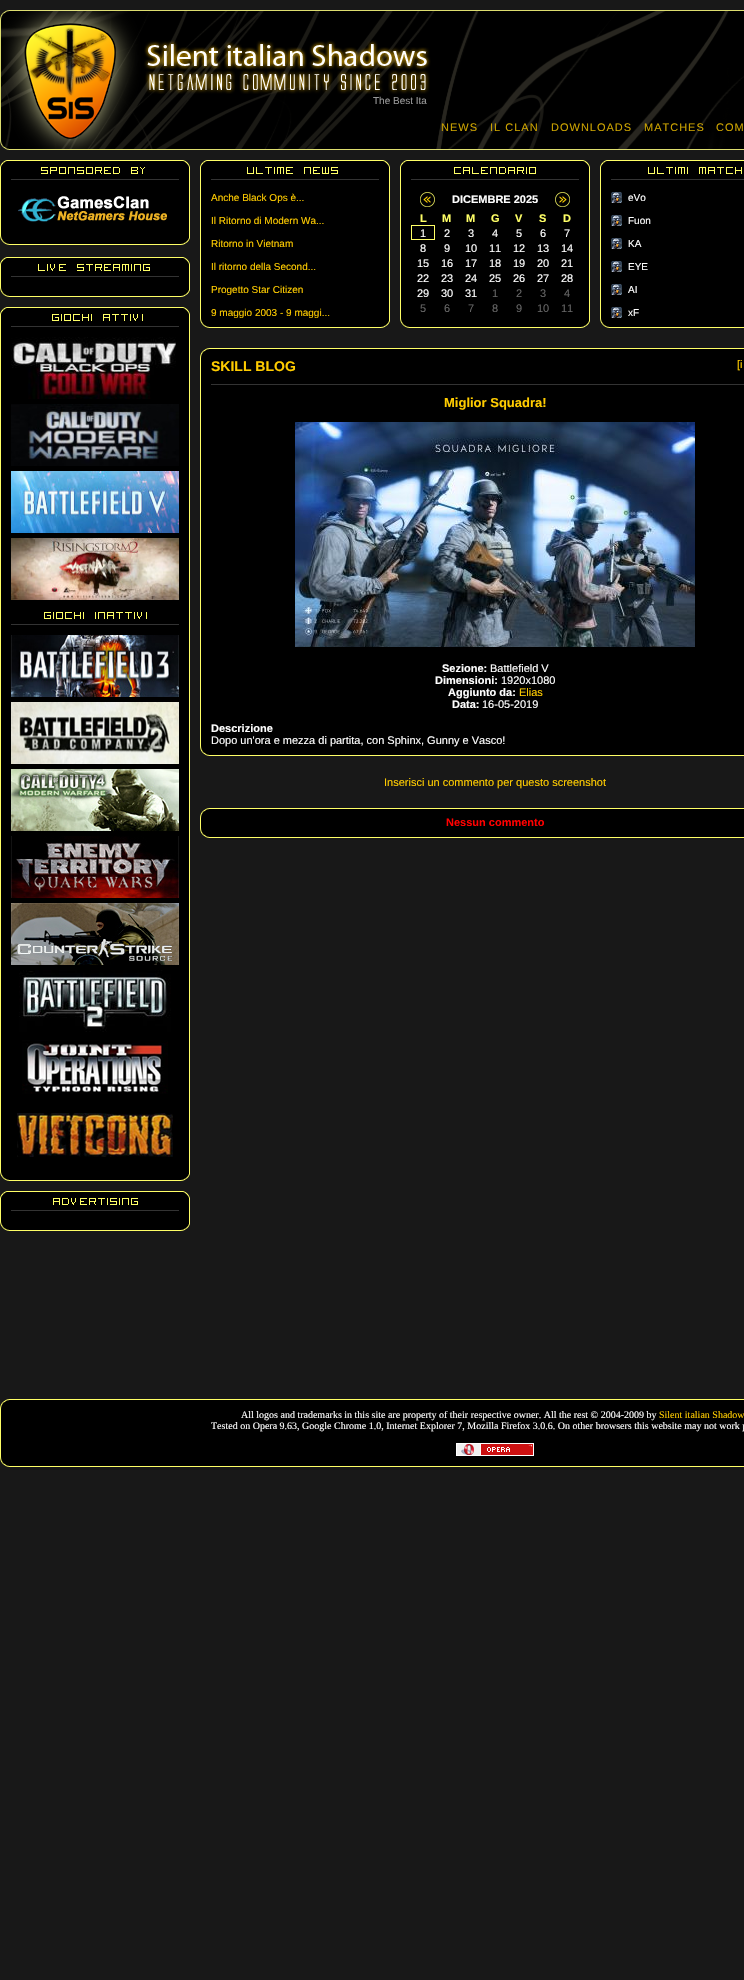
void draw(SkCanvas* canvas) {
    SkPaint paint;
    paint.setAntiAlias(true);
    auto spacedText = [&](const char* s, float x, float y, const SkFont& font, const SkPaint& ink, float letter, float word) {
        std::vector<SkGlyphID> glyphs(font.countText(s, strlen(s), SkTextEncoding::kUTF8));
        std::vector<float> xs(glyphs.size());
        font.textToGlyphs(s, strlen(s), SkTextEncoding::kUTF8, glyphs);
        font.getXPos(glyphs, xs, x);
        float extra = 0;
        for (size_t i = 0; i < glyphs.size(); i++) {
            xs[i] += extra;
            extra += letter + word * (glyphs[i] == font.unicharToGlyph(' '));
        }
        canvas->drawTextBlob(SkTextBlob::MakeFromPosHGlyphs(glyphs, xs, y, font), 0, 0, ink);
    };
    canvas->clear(0xFF181818);
    canvas->drawImageRect(SkImages::DeferredFromEncodedData(SkData::MakeFromFileName("img1.png")), SkRect::MakeXYWH(0, 10, 744, 140), SkSamplingOptions());
    SkFont font1(fontMgr->matchFamilyStyle("Liberation Sans", SkFontStyle::Normal()), 10);
    font1.setSubpixel(true);
    paint.setColor(0xFF999999);
    canvas->drawString("The Best Ita", 373, 104, font1, paint);
    SkFont font2(fontMgr->matchFamilyStyle("Liberation Sans", SkFontStyle::Normal()), 11);
    font2.setSubpixel(true);
    paint.setColor(0xFFCDA401);
    spacedText("NEWS", 441, 131, font2, paint, 1, 0);
    spacedText("IL CLAN", 490, 131, font2, paint, 1, 0);
    spacedText("DOWNLOADS", 551, 131, font2, paint, 1, 0);
    spacedText("MATCHES", 644, 131, font2, paint, 1, 0);
    spacedText("COM", 716, 131, font2, paint, 1, 0);
    canvas->drawImageRect(SkImages::DeferredFromEncodedData(SkData::MakeFromFileName("img2.png")), SkRect::MakeXYWH(0, 160, 190, 20), SkSamplingOptions());
    paint.setColor(0xFF000000);
    canvas->drawRect(SkRect::MakeXYWH(1, 180, 188, 55), paint);
    paint.setColor(0xFFFFFF66);
    canvas->drawRect(SkRect::MakeXYWH(189, 180, 1, 55), paint);
    canvas->drawRect(SkRect::MakeXYWH(0, 180, 1, 55), paint);
    canvas->drawImageRect(SkImages::DeferredFromEncodedData(SkData::MakeFromFileName("img3.png")), SkRect::MakeXYWH(18, 196, 149, 26), SkSamplingOptions());
    canvas->drawImageRect(SkImages::DeferredFromEncodedData(SkData::MakeFromFileName("img4.png")), SkRect::MakeXYWH(0, 235, 190, 10), SkSamplingOptions());
    canvas->drawImageRect(SkImages::DeferredFromEncodedData(SkData::MakeFromFileName("img5.png")), SkRect::MakeXYWH(0, 257, 190, 20), SkSamplingOptions());
    paint.setColor(0xFF000000);
    canvas->drawRect(SkRect::MakeXYWH(1, 277, 188, 10), paint);
    paint.setColor(0xFFFFFF66);
    canvas->drawRect(SkRect::MakeXYWH(189, 277, 1, 10), paint);
    canvas->drawRect(SkRect::MakeXYWH(0, 277, 1, 10), paint);
    canvas->drawImageRect(SkImages::DeferredFromEncodedData(SkData::MakeFromFileName("img4.png")), SkRect::MakeXYWH(0, 287, 190, 10), SkSamplingOptions());
    canvas->drawImageRect(SkImages::DeferredFromEncodedData(SkData::MakeFromFileName("img6.png")), SkRect::MakeXYWH(0, 307, 190, 20), SkSamplingOptions());
    paint.setColor(0xFF000000);
    canvas->drawRect(SkRect::MakeXYWH(1, 327, 188, 278), paint);
    paint.setColor(0xFFFFFF66);
    canvas->drawRect(SkRect::MakeXYWH(189, 327, 1, 278), paint);
    canvas->drawRect(SkRect::MakeXYWH(0, 327, 1, 278), paint);
    canvas->drawImageRect(SkImages::DeferredFromEncodedData(SkData::MakeFromFileName("img7.png")), SkRect::MakeXYWH(11, 337, 165, 62), SkSamplingOptions());
    canvas->drawImageRect(SkImages::DeferredFromEncodedData(SkData::MakeFromFileName("img8.png")), SkRect::MakeXYWH(11, 404, 168, 62), SkSamplingOptions());
    canvas->drawImageRect(SkImages::DeferredFromEncodedData(SkData::MakeFromFileName("img9.png")), SkRect::MakeXYWH(11, 471, 168, 62), SkSamplingOptions());
    canvas->drawImageRect(SkImages::DeferredFromEncodedData(SkData::MakeFromFileName("img10.png")), SkRect::MakeXYWH(11, 538, 168, 62), SkSamplingOptions());
    canvas->drawImageRect(SkImages::DeferredFromEncodedData(SkData::MakeFromFileName("img11.png")), SkRect::MakeXYWH(0, 605, 190, 20), SkSamplingOptions());
    paint.setColor(0xFF000000);
    canvas->drawRect(SkRect::MakeXYWH(1, 625, 188, 546), paint);
    paint.setColor(0xFFFFFF66);
    canvas->drawRect(SkRect::MakeXYWH(189, 625, 1, 546), paint);
    canvas->drawRect(SkRect::MakeXYWH(0, 625, 1, 546), paint);
    canvas->drawImageRect(SkImages::DeferredFromEncodedData(SkData::MakeFromFileName("img12.png")), SkRect::MakeXYWH(11, 635, 168, 62), SkSamplingOptions());
    canvas->drawImageRect(SkImages::DeferredFromEncodedData(SkData::MakeFromFileName("img13.png")), SkRect::MakeXYWH(11, 702, 168, 62), SkSamplingOptions());
    canvas->drawImageRect(SkImages::DeferredFromEncodedData(SkData::MakeFromFileName("img14.png")), SkRect::MakeXYWH(11, 769, 168, 62), SkSamplingOptions());
    canvas->drawImageRect(SkImages::DeferredFromEncodedData(SkData::MakeFromFileName("img15.png")), SkRect::MakeXYWH(11, 836, 168, 62), SkSamplingOptions());
    canvas->drawImageRect(SkImages::DeferredFromEncodedData(SkData::MakeFromFileName("img16.png")), SkRect::MakeXYWH(11, 903, 168, 62), SkSamplingOptions());
    canvas->drawImageRect(SkImages::DeferredFromEncodedData(SkData::MakeFromFileName("img17.png")), SkRect::MakeXYWH(19, 970, 152, 62), SkSamplingOptions());
    canvas->drawImageRect(SkImages::DeferredFromEncodedData(SkData::MakeFromFileName("img18.png")), SkRect::MakeXYWH(22, 1040, 146, 54), SkSamplingOptions());
    canvas->drawImageRect(SkImages::DeferredFromEncodedData(SkData::MakeFromFileName("img19.png")), SkRect::MakeXYWH(17, 1113, 156, 44), SkSamplingOptions());
    canvas->drawImageRect(SkImages::DeferredFromEncodedData(SkData::MakeFromFileName("img4.png")), SkRect::MakeXYWH(0, 1171, 190, 10), SkSamplingOptions());
    canvas->drawImageRect(SkImages::DeferredFromEncodedData(SkData::MakeFromFileName("img20.png")), SkRect::MakeXYWH(0, 1191, 190, 20), SkSamplingOptions());
    paint.setColor(0xFF000000);
    canvas->drawRect(SkRect::MakeXYWH(1, 1211, 188, 10), paint);
    paint.setColor(0xFFFFFF66);
    canvas->drawRect(SkRect::MakeXYWH(189, 1211, 1, 10), paint);
    canvas->drawRect(SkRect::MakeXYWH(0, 1211, 1, 10), paint);
    canvas->drawImageRect(SkImages::DeferredFromEncodedData(SkData::MakeFromFileName("img4.png")), SkRect::MakeXYWH(0, 1221, 190, 10), SkSamplingOptions());
    canvas->drawImageRect(SkImages::DeferredFromEncodedData(SkData::MakeFromFileName("img21.png")), SkRect::MakeXYWH(200, 160, 190, 20), SkSamplingOptions());
    paint.setColor(0xFF000000);
    canvas->drawRect(SkRect::MakeXYWH(201, 180, 188, 138), paint);
    paint.setColor(0xFFFFFF66);
    canvas->drawRect(SkRect::MakeXYWH(389, 180, 1, 138), paint);
    canvas->drawRect(SkRect::MakeXYWH(200, 180, 1, 138), paint);
    paint.setColor(0xFFFFCC00);
    canvas->drawString("Anche Black Ops è...", 211, 201, font1, paint);
    canvas->drawString("Il Ritorno di Modern Wa...", 211, 224, font1, paint);
    canvas->drawString("Ritorno in Vietnam", 211, 247, font1, paint);
    canvas->drawString("Il ritorno della Second...", 211, 270, font1, paint);
    canvas->drawString("Progetto Star Citizen", 211, 293, font1, paint);
    canvas->drawImageRect(SkImages::DeferredFromEncodedData(SkData::MakeFromFileName("img4.png")), SkRect::MakeXYWH(200, 318, 190, 10), SkSamplingOptions());
    canvas->drawString("9 maggio 2003 - 9 maggi...", 211, 316, font1, paint);
    canvas->drawImageRect(SkImages::DeferredFromEncodedData(SkData::MakeFromFileName("img22.png")), SkRect::MakeXYWH(400, 160, 190, 20), SkSamplingOptions());
    paint.setColor(0xFF000000);
    canvas->drawRect(SkRect::MakeXYWH(401, 180, 188, 138), paint);
    paint.setColor(0xFFFFFF66);
    canvas->drawRect(SkRect::MakeXYWH(589, 180, 1, 138), paint);
    canvas->drawRect(SkRect::MakeXYWH(400, 180, 1, 138), paint);
    canvas->drawImageRect(SkImages::DeferredFromEncodedData(SkData::MakeFromFileName("img23.png")), SkRect::MakeXYWH(420, 192, 15, 15), SkSamplingOptions());
    SkFont font3(fontMgr->matchFamilyStyle("Liberation Sans", SkFontStyle::Bold()), 11);
    font3.setSubpixel(true);
    paint.setColor(0xFFFFFFFF);
    canvas->drawString("DICEMBRE 2025", 452, 203, font3, paint);
    canvas->drawImageRect(SkImages::DeferredFromEncodedData(SkData::MakeFromFileName("img24.png")), SkRect::MakeXYWH(555, 192, 15, 15), SkSamplingOptions());
    paint.setColor(0xFFFFFF66);
    canvas->drawString("L", 420, 222, font3, paint);
    canvas->drawString("M", 442, 222, font3, paint);
    canvas->drawString("M", 466, 222, font3, paint);
    canvas->drawString("G", 491, 222, font3, paint);
    canvas->drawString("V", 515, 222, font3, paint);
    canvas->drawString("S", 539, 222, font3, paint);
    canvas->drawString("D", 563, 222, font3, paint);
    paint.setStyle(SkPaint::kStroke_Style);
    paint.setStrokeWidth(1);
    canvas->drawRect(SkRect::MakeXYWH(411.5f, 225.5f, 23, 14), paint);
    paint.setStyle(SkPaint::kFill_Style);
    paint.setColor(0xFFFFFFFF);
    canvas->drawString("1", 420, 237, font2, paint);
    canvas->drawString("2", 444, 237, font2, paint);
    canvas->drawString("3", 468, 237, font2, paint);
    canvas->drawString("4", 492, 237, font2, paint);
    canvas->drawString("5", 516, 237, font2, paint);
    canvas->drawString("6", 540, 237, font2, paint);
    canvas->drawString("7", 564, 237, font2, paint);
    canvas->drawString("8", 420, 252, font2, paint);
    canvas->drawString("9", 444, 252, font2, paint);
    canvas->drawString("10", 465, 252, font2, paint);
    canvas->drawString("11", 489, 252, font2, paint);
    canvas->drawString("12", 513, 252, font2, paint);
    canvas->drawString("13", 537, 252, font2, paint);
    canvas->drawString("14", 561, 252, font2, paint);
    canvas->drawString("15", 417, 267, font2, paint);
    canvas->drawString("16", 441, 267, font2, paint);
    canvas->drawString("17", 465, 267, font2, paint);
    canvas->drawString("18", 489, 267, font2, paint);
    canvas->drawString("19", 513, 267, font2, paint);
    canvas->drawString("20", 537, 267, font2, paint);
    canvas->drawString("21", 561, 267, font2, paint);
    canvas->drawString("22", 417, 282, font2, paint);
    canvas->drawString("23", 441, 282, font2, paint);
    canvas->drawString("24", 465, 282, font2, paint);
    canvas->drawString("25", 489, 282, font2, paint);
    canvas->drawString("26", 513, 282, font2, paint);
    canvas->drawString("27", 537, 282, font2, paint);
    canvas->drawString("28", 561, 282, font2, paint);
    canvas->drawString("29", 417, 297, font2, paint);
    canvas->drawString("30", 441, 297, font2, paint);
    canvas->drawString("31", 465, 297, font2, paint);
    paint.setColor(0xFF666666);
    canvas->drawString("1", 492, 297, font2, paint);
    canvas->drawString("2", 516, 297, font2, paint);
    canvas->drawString("3", 540, 297, font2, paint);
    canvas->drawString("4", 564, 297, font2, paint);
    canvas->drawString("5", 420, 312, font2, paint);
    canvas->drawString("6", 444, 312, font2, paint);
    canvas->drawString("7", 468, 312, font2, paint);
    canvas->drawString("8", 492, 312, font2, paint);
    canvas->drawString("9", 516, 312, font2, paint);
    canvas->drawString("10", 537, 312, font2, paint);
    canvas->drawString("11", 561, 312, font2, paint);
    canvas->drawImageRect(SkImages::DeferredFromEncodedData(SkData::MakeFromFileName("img4.png")), SkRect::MakeXYWH(400, 318, 190, 10), SkSamplingOptions());
    canvas->drawImageRect(SkImages::DeferredFromEncodedData(SkData::MakeFromFileName("img25.png")), SkRect::MakeXYWH(600, 160, 144, 20), SkSamplingOptions());
    paint.setColor(0xFF000000);
    canvas->drawRect(SkRect::MakeXYWH(601, 180, 143, 23), paint);
    paint.setColor(0xFFFFFF66);
    canvas->drawRect(SkRect::MakeXYWH(600, 180, 1, 138), paint);
    canvas->drawImageRect(SkImages::DeferredFromEncodedData(SkData::MakeFromFileName("img26.png")), SkRect::MakeXYWH(611, 192, 11, 11), SkSamplingOptions());
    paint.setColor(0xFFFFFFFF);
    canvas->drawString("eVo", 628, 201, font1, paint);
    paint.setColor(0xFF000000);
    canvas->drawRect(SkRect::MakeXYWH(601, 203, 143, 23), paint);
    canvas->drawImageRect(SkImages::DeferredFromEncodedData(SkData::MakeFromFileName("img26.png")), SkRect::MakeXYWH(611, 215, 11, 11), SkSamplingOptions());
    paint.setColor(0xFFFFFFFF);
    canvas->drawString("Fuon", 628, 224, font1, paint);
    paint.setColor(0xFF000000);
    canvas->drawRect(SkRect::MakeXYWH(601, 226, 143, 23), paint);
    canvas->drawImageRect(SkImages::DeferredFromEncodedData(SkData::MakeFromFileName("img26.png")), SkRect::MakeXYWH(611, 238, 11, 11), SkSamplingOptions());
    paint.setColor(0xFFFFFFFF);
    canvas->drawString("KA", 628, 247, font1, paint);
    paint.setColor(0xFF000000);
    canvas->drawRect(SkRect::MakeXYWH(601, 249, 143, 23), paint);
    canvas->drawImageRect(SkImages::DeferredFromEncodedData(SkData::MakeFromFileName("img26.png")), SkRect::MakeXYWH(611, 261, 11, 11), SkSamplingOptions());
    paint.setColor(0xFFFFFFFF);
    canvas->drawString("EYE", 628, 270, font1, paint);
    paint.setColor(0xFF000000);
    canvas->drawRect(SkRect::MakeXYWH(601, 272, 143, 23), paint);
    canvas->drawImageRect(SkImages::DeferredFromEncodedData(SkData::MakeFromFileName("img26.png")), SkRect::MakeXYWH(611, 284, 11, 11), SkSamplingOptions());
    paint.setColor(0xFFFFFFFF);
    canvas->drawString("AI", 628, 293, font1, paint);
    paint.setColor(0xFF000000);
    canvas->drawRect(SkRect::MakeXYWH(601, 295, 143, 23), paint);
    canvas->drawImageRect(SkImages::DeferredFromEncodedData(SkData::MakeFromFileName("img26.png")), SkRect::MakeXYWH(611, 307, 11, 11), SkSamplingOptions());
    paint.setColor(0xFFFFFFFF);
    canvas->drawString("xF", 628, 316, font1, paint);
    canvas->drawImageRect(SkImages::DeferredFromEncodedData(SkData::MakeFromFileName("img27.png")), SkRect::MakeXYWH(600, 318, 144, 10), SkSamplingOptions());
    canvas->drawImageRect(SkImages::DeferredFromEncodedData(SkData::MakeFromFileName("img28.png")), SkRect::MakeXYWH(200, 348, 544, 10), SkSamplingOptions());
    paint.setColor(0xFF000000);
    canvas->drawRect(SkRect::MakeXYWH(201, 358, 543, 388), paint);
    paint.setColor(0xFFFFFF66);
    canvas->drawRect(SkRect::MakeXYWH(200, 358, 1, 388), paint);
    SkFont font4(fontMgr->matchFamilyStyle("Liberation Sans", SkFontStyle::Bold()), 14);
    font4.setSubpixel(true);
    paint.setColor(0xFFFFCC00);
    canvas->drawString("SKILL BLOG", 211, 371, font4, paint);
    canvas->drawString("[i", 737, 368, font2, paint);
    paint.setColor(0xFF333333);
    canvas->drawRect(SkRect::MakeXYWH(211, 384, 533, 1), paint);
    SkFont font5(fontMgr->matchFamilyStyle("Liberation Sans", SkFontStyle::Bold()), 13);
    font5.setSubpixel(true);
    paint.setColor(0xFFFFCC00);
    canvas->drawString("Miglior Squadra!", 444, 407, font5, paint);
    canvas->drawImageRect(SkImages::DeferredFromEncodedData(SkData::MakeFromFileName("img29.png")), SkRect::MakeXYWH(295, 422, 400, 225), SkSamplingOptions());
    paint.setColor(0xFFFFFFFF);
    canvas->drawString("Sezione:", 442, 672, font3, paint);
    canvas->drawString("Battlefield V", 490, 672, font2, paint);
    canvas->drawString("Dimensioni:", 435, 684, font3, paint);
    canvas->drawString("1920x1080", 501, 684, font2, paint);
    canvas->drawString("Aggiunto da:", 448, 696, font3, paint);
    paint.setColor(0xFFFFCC00);
    canvas->drawString("Elias", 519, 696, font2, paint);
    paint.setColor(0xFFFFFFFF);
    canvas->drawString("Data:", 452, 708, font3, paint);
    canvas->drawString("16-05-2019", 482, 708, font2, paint);
    canvas->drawString("Descrizione", 211, 732, font3, paint);
    canvas->drawImageRect(SkImages::DeferredFromEncodedData(SkData::MakeFromFileName("img30.png")), SkRect::MakeXYWH(200, 746, 544, 10), SkSamplingOptions());
    canvas->drawString("Dopo un'ora e mezza di partita, con Sphinx, Gunny e Vasco!", 211, 744, font2, paint);
    paint.setColor(0xFFFFCC00);
    canvas->drawString("Inserisci un commento per questo screenshot", 384, 786, font2, paint);
    canvas->drawImageRect(SkImages::DeferredFromEncodedData(SkData::MakeFromFileName("img31.png")), SkRect::MakeXYWH(200, 808, 544, 20), SkSamplingOptions());
    paint.setColor(0xFFFF0000);
    canvas->drawString("Nessun commento", 446, 826, font3, paint);
    canvas->drawImageRect(SkImages::DeferredFromEncodedData(SkData::MakeFromFileName("img30.png")), SkRect::MakeXYWH(200, 828, 544, 10), SkSamplingOptions());
    canvas->drawImageRect(SkImages::DeferredFromEncodedData(SkData::MakeFromFileName("img32.png")), SkRect::MakeXYWH(0, 1399, 744, 10), SkSamplingOptions());
    paint.setColor(0xFF000000);
    canvas->drawRect(SkRect::MakeXYWH(1, 1409, 743, 48), paint);
    paint.setColor(0xFFFFFF66);
    canvas->drawRect(SkRect::MakeXYWH(0, 1409, 1, 48), paint);
    SkFont font6(fontMgr->matchFamilyStyle("Liberation Serif", SkFontStyle::Normal()), 10);
    font6.setSubpixel(true);
    paint.setColor(0xFFFFFFFF);
    canvas->drawString("All logos and trademarks in this site are property of their respective owner. All the rest © 2004-2009 by", 241, 1418, font6, paint);
    paint.setColor(0xFFFFCC00);
    canvas->drawString("Silent italian Shadow", 659, 1418, font6, paint);
    paint.setColor(0xFFFFFFFF);
    canvas->drawString("Tested on Opera 9.63, Google Chrome 1.0, Internet Explorer 7, Mozilla Firefox 3.0.6. On other browsers this website may not work p", 211, 1429, font6, paint);
    canvas->drawImageRect(SkImages::DeferredFromEncodedData(SkData::MakeFromFileName("img33.png")), SkRect::MakeXYWH(456, 1443, 78, 13), SkSamplingOptions());
    canvas->drawImageRect(SkImages::DeferredFromEncodedData(SkData::MakeFromFileName("img34.png")), SkRect::MakeXYWH(0, 1457, 744, 10), SkSamplingOptions());
}
